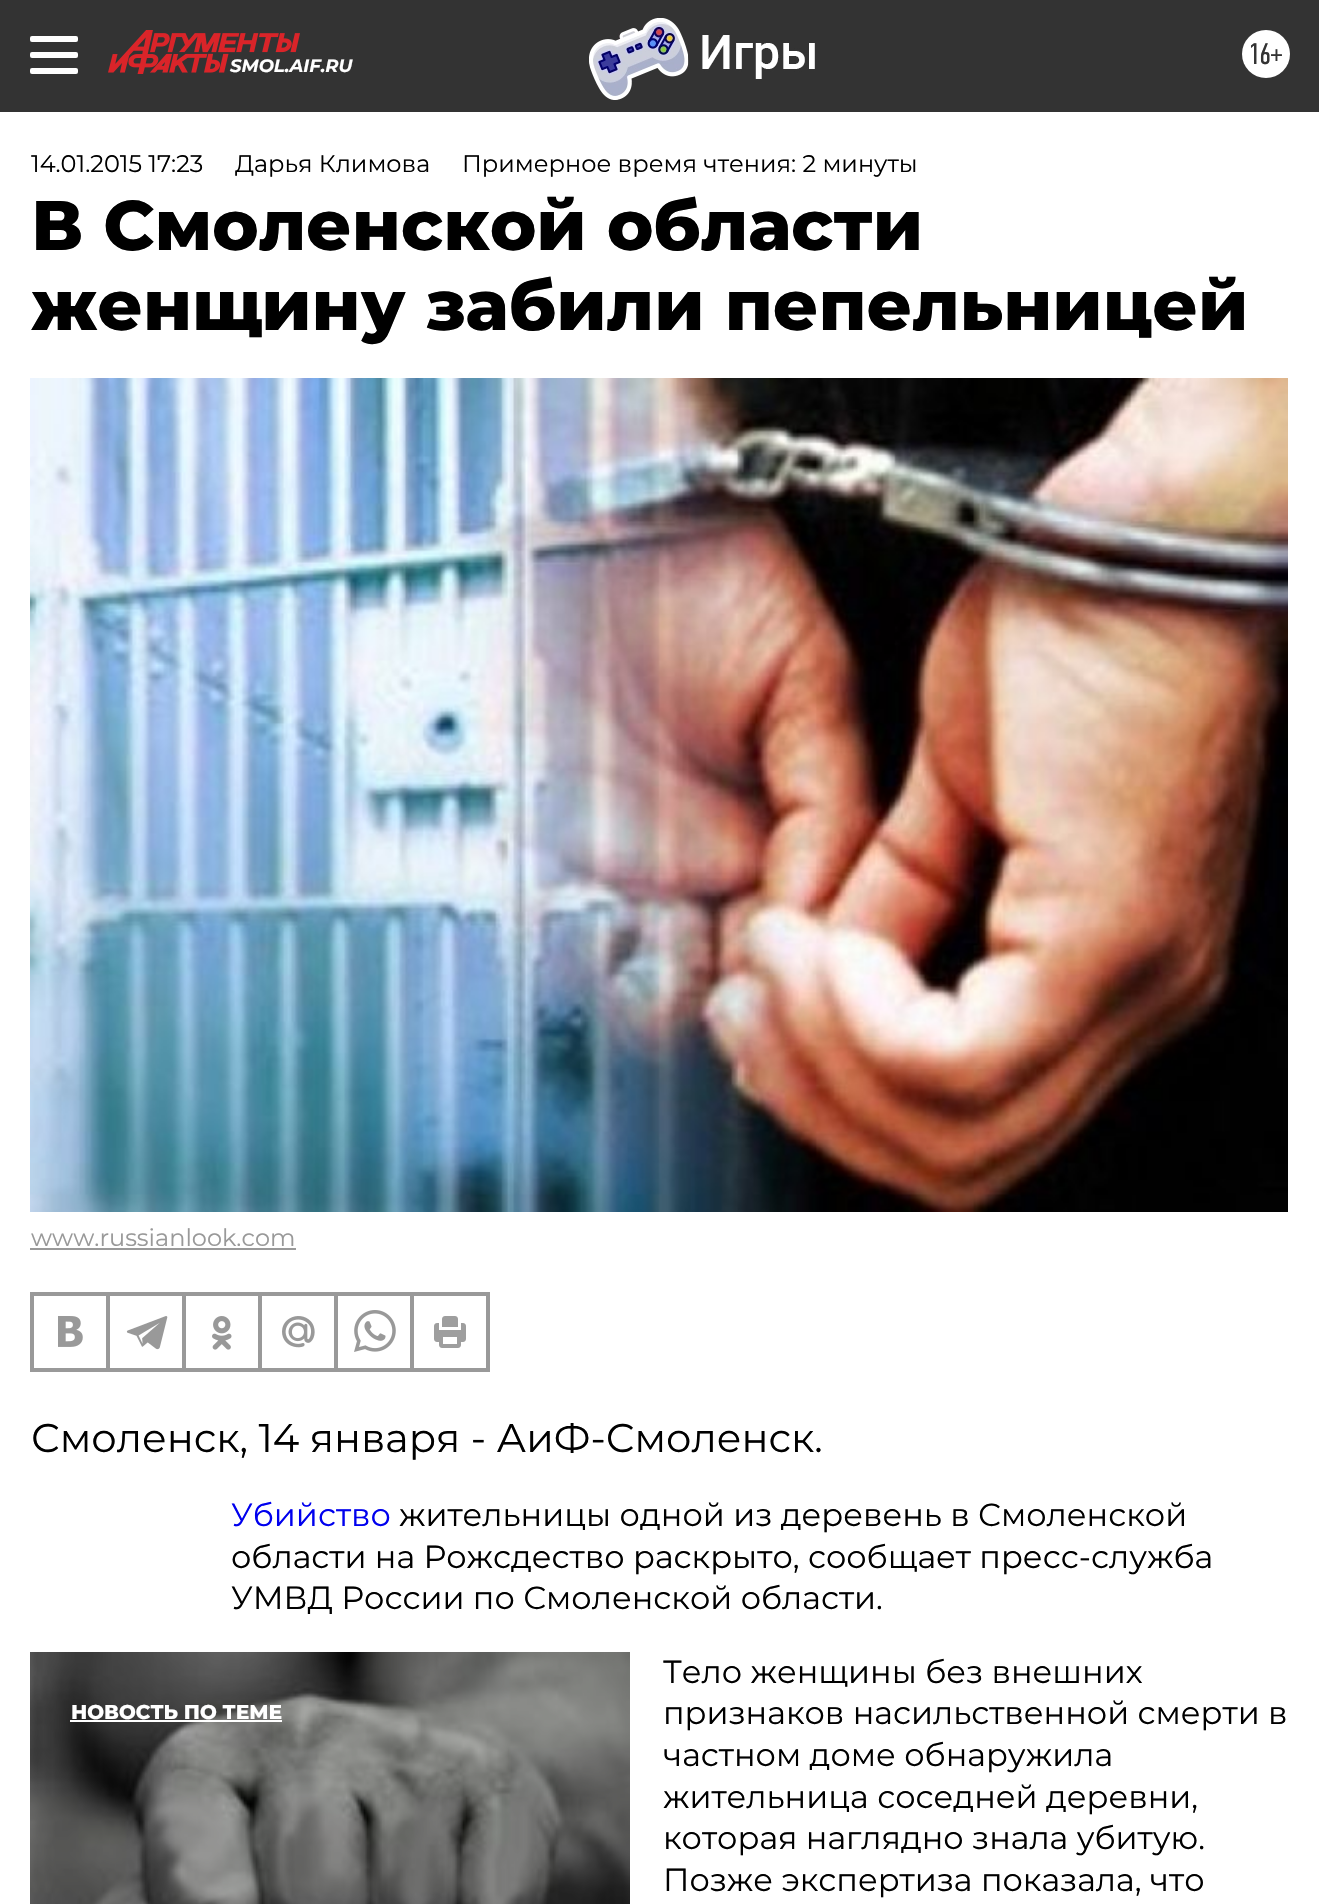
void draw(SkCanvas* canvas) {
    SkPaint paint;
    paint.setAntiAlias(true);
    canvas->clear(0xFFFFFFFF);
    paint.setColor(0xFF333333);
    canvas->drawRect(SkRect::MakeXYWH(0, 0, 1319, 112), paint);
    paint.setColor(0xFFFFFFFF);
    canvas->drawRoundRect(SkRect::MakeXYWH(30, 36, 48, 6), 2, 2, paint);
    canvas->drawRoundRect(SkRect::MakeXYWH(30, 52, 48, 6), 2, 2, paint);
    canvas->drawRoundRect(SkRect::MakeXYWH(30, 68, 48, 6), 2, 2, paint);
    canvas->drawImageRect(SkImages::DeferredFromEncodedData(SkData::MakeFromFileName("img1.png")), SkRect::MakeXYWH(108, 30, 192, 44), SkSamplingOptions());
    SkFont font1(fontMgr->matchFamilyStyle("Montserrat", SkFontStyle::BoldItalic()), 18);
    font1.setSubpixel(true);
    canvas->drawString("SMOL.AIF.RU", 230, 72, font1, paint);
    canvas->drawImageRect(SkImages::DeferredFromEncodedData(SkData::MakeFromFileName("img2.png")), SkRect::MakeXYWH(589, 18, 226, 82), SkSamplingOptions());
    canvas->drawCircle(1266, 54, 24, paint);
    SkFont font2(fontMgr->matchFamilyStyle("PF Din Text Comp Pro", SkFontStyle::Normal()), 30);
    font2.setSubpixel(true);
    paint.setColor(0xFF333333);
    canvas->drawString("16+", 1248, 64, font2, paint);
    SkFont font3(fontMgr->matchFamilyStyle("Montserrat", SkFontStyle::Normal()), 24);
    font3.setSubpixel(true);
    paint.setColor(0xFF000000);
    canvas->drawString("14.01.2015 17:23", 31, 172, font3, paint);
    canvas->drawString("Дарья Климова", 235, 172, font3, paint);
    canvas->drawString("Примерное время чтения: 2 минуты", 462, 172, font3, paint);
    SkFont font4(fontMgr->matchFamilyStyle("Montserrat", SkFontStyle(800, SkFontStyle::kNormal_Width, SkFontStyle::kUpright_Slant)), 70);
    font4.setSubpixel(true);
    canvas->drawString("В Смоленской области", 31, 250, font4, paint);
    canvas->drawString("женщину забили пепельницей", 31, 330, font4, paint);
    canvas->drawImageRect(SkImages::DeferredFromEncodedData(SkData::MakeFromFileName("img3.png")), SkRect::MakeXYWH(30, 378, 1258, 834), SkSamplingOptions());
    paint.setColor(0xFF999999);
    canvas->drawString("www.russianlook.com", 31, 1246, font3, paint);
    canvas->drawRect(SkRect::MakeXYWH(30, 1248, 266, 2), paint);
    paint.setStyle(SkPaint::kStroke_Style);
    paint.setStrokeWidth(2);
    canvas->drawRect(SkRect::MakeXYWH(31, 1293, 458, 78), paint);
    canvas->drawRect(SkRect::MakeXYWH(33, 1295, 74, 74), paint);
    canvas->drawImageRect(SkImages::DeferredFromEncodedData(SkData::MakeFromFileName("img4.png")), SkRect::MakeXYWH(58, 1316, 25, 31), SkSamplingOptions());
    canvas->drawRect(SkRect::MakeXYWH(109, 1295, 74, 74), paint);
    canvas->drawImageRect(SkImages::DeferredFromEncodedData(SkData::MakeFromFileName("img5.png")), SkRect::MakeXYWH(126, 1316, 42, 34), SkSamplingOptions());
    canvas->drawRect(SkRect::MakeXYWH(185, 1295, 74, 74), paint);
    canvas->drawImageRect(SkImages::DeferredFromEncodedData(SkData::MakeFromFileName("img6.png")), SkRect::MakeXYWH(212, 1316, 20, 34), SkSamplingOptions());
    canvas->drawRect(SkRect::MakeXYWH(261, 1295, 74, 74), paint);
    canvas->drawImageRect(SkImages::DeferredFromEncodedData(SkData::MakeFromFileName("img7.png")), SkRect::MakeXYWH(282, 1316, 33, 32), SkSamplingOptions());
    canvas->drawRect(SkRect::MakeXYWH(337, 1295, 74, 74), paint);
    canvas->drawImageRect(SkImages::DeferredFromEncodedData(SkData::MakeFromFileName("img8.png")), SkRect::MakeXYWH(354, 1310, 42, 42), SkSamplingOptions());
    canvas->drawRect(SkRect::MakeXYWH(413, 1295, 74, 74), paint);
    canvas->drawImageRect(SkImages::DeferredFromEncodedData(SkData::MakeFromFileName("img9.png")), SkRect::MakeXYWH(434, 1316, 32, 32), SkSamplingOptions());
    SkFont font5(fontMgr->matchFamilyStyle("Montserrat", SkFontStyle::Normal()), 40);
    font5.setSubpixel(true);
    paint.setStyle(SkPaint::kFill_Style);
    paint.setColor(0xFF000000);
    canvas->drawString("Смоленск, 14 января - АиФ-Смоленск.", 31, 1452, font5, paint);
    SkFont font6(fontMgr->matchFamilyStyle("Montserrat", SkFontStyle::Normal()), 32);
    font6.setSubpixel(true);
    paint.setColor(0xFF0000EE);
    canvas->drawString("Убийство", 231, 1526, font6, paint);
    paint.setColor(0xFF000000);
    canvas->drawString("жительницы одной из деревень в Смоленской", 399, 1526, font6, paint);
    canvas->drawString("области на Рожсдество раскрыто, сообщает пресс-служба", 231, 1568, font6, paint);
    canvas->drawString("УМВД России по Смоленской области.", 231, 1609, font6, paint);
    canvas->drawImageRect(SkImages::DeferredFromEncodedData(SkData::MakeFromFileName("img10.png")), SkRect::MakeXYWH(30, 1652, 600, 252), SkSamplingOptions());
    SkFont font7(fontMgr->matchFamilyStyle("Montserrat", SkFontStyle(800, SkFontStyle::kNormal_Width, SkFontStyle::kUpright_Slant)), 20);
    font7.setSubpixel(true);
    paint.setColor(0xFFFFFFFF);
    canvas->drawString("НОВОСТЬ ПО ТЕМЕ", 71, 1719, font7, paint);
    canvas->drawRect(SkRect::MakeXYWH(70, 1720, 212, 2), paint);
    paint.setColor(0xFF000000);
    canvas->drawString("Тело женщины без внешних", 663, 1683, font6, paint);
    canvas->drawString("признаков насильственной смерти в", 663, 1724, font6, paint);
    canvas->drawString("частном доме обнаружила", 663, 1766, font6, paint);
    canvas->drawString("жительница соседней деревни,", 663, 1808, font6, paint);
    canvas->drawString("которая наглядно знала убитую.", 663, 1849, font6, paint);
    canvas->drawString("Позже экспертиза показала, что", 663, 1891, font6, paint);
}
